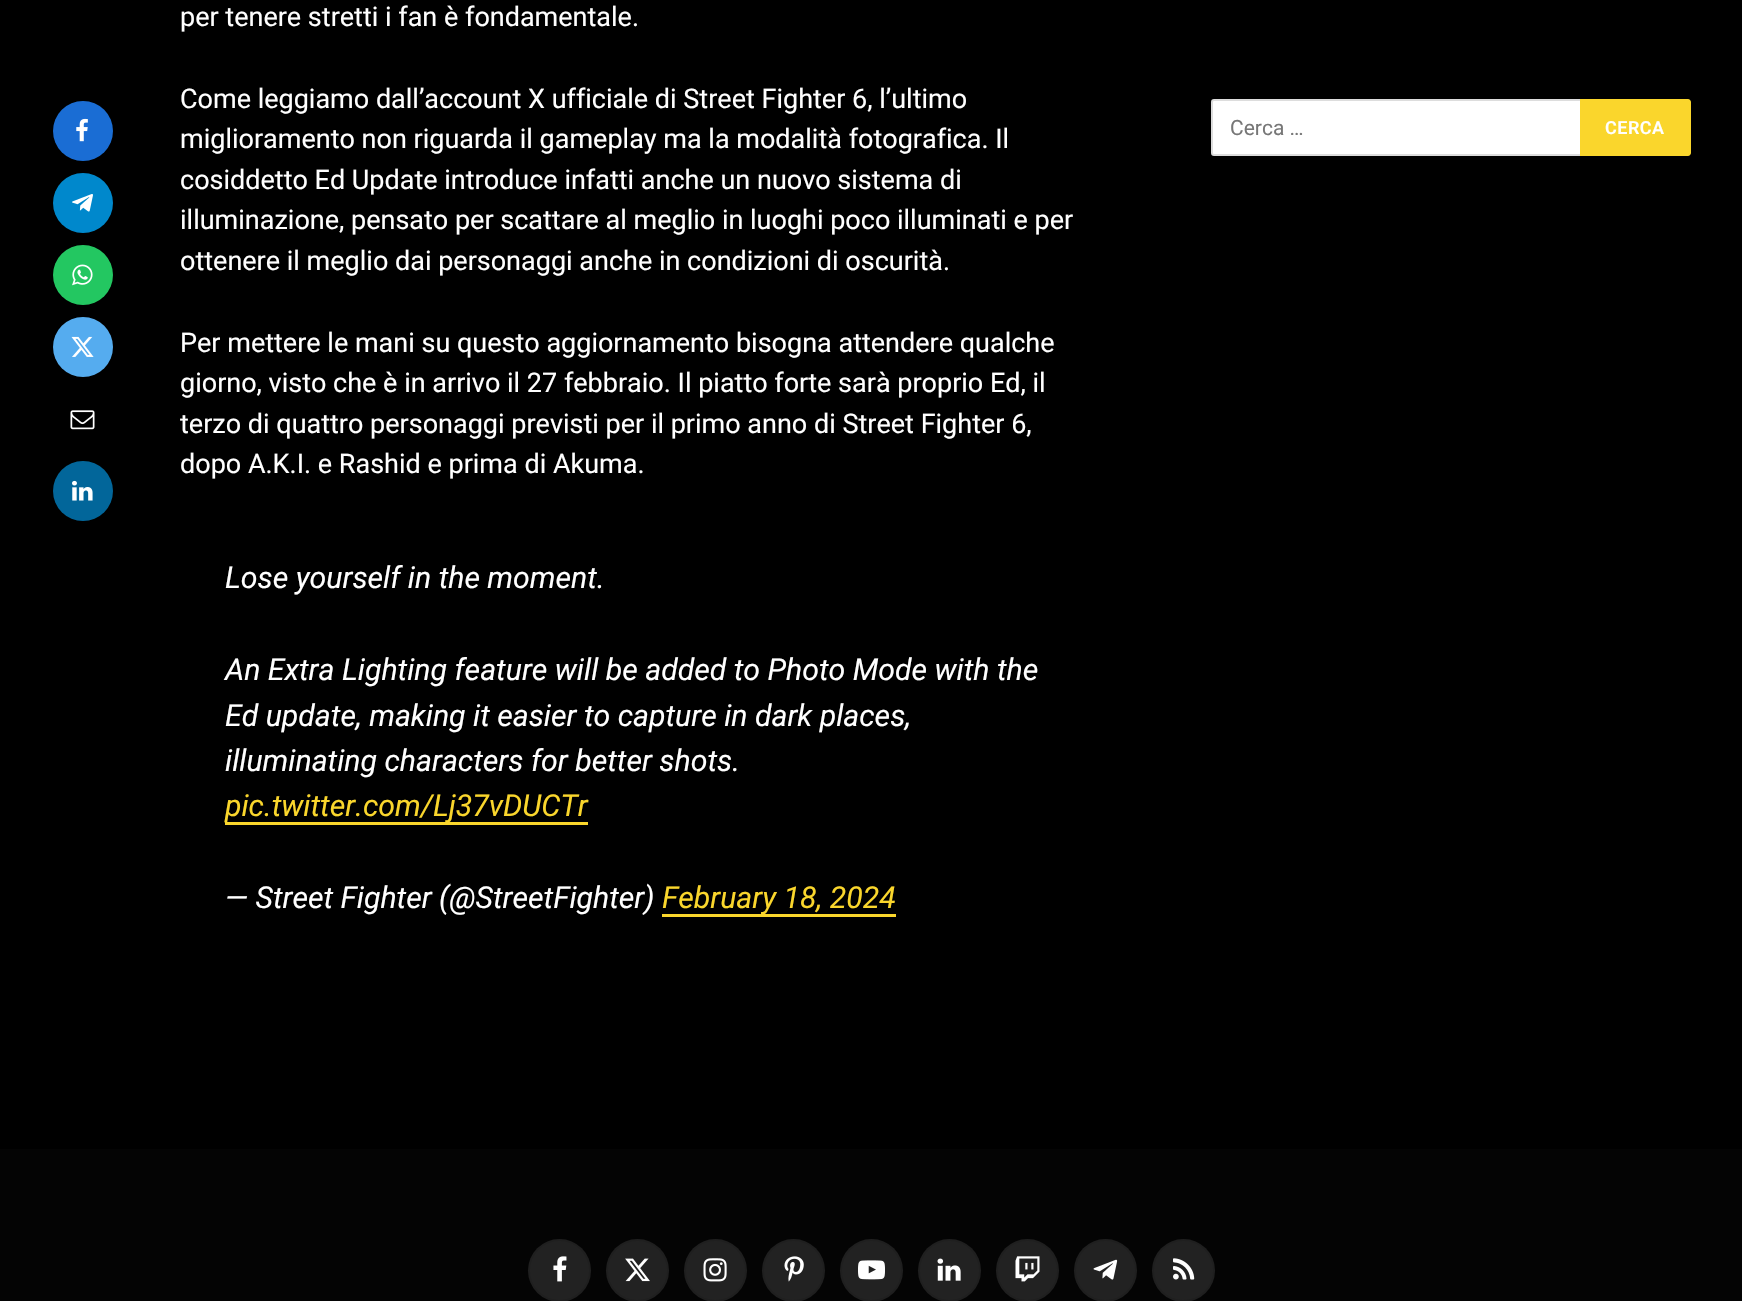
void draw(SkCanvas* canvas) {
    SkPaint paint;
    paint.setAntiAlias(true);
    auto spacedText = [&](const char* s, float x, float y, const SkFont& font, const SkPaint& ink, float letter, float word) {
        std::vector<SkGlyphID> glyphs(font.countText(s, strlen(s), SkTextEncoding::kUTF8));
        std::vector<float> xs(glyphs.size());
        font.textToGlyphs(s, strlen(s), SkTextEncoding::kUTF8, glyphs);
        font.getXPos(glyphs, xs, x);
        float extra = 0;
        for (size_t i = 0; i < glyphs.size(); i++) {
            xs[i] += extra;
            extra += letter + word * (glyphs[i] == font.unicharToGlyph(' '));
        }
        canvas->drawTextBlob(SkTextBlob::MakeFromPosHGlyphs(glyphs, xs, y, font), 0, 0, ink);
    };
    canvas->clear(0xFF000000);
    paint.setColor(0xFF1A6DD4);
    canvas->drawCircle(83, 131, 30, paint);
    canvas->drawImageRect(SkImages::DeferredFromEncodedData(SkData::MakeFromFileName("img1.png")), SkRect::MakeXYWH(76, 118, 12, 24), SkSamplingOptions());
    paint.setColor(0xFF0088CC);
    canvas->drawCircle(83, 203, 30, paint);
    canvas->drawImageRect(SkImages::DeferredFromEncodedData(SkData::MakeFromFileName("img2.png")), SkRect::MakeXYWH(72, 194, 21, 18), SkSamplingOptions());
    paint.setColor(0xFF23C761);
    canvas->drawCircle(83, 275, 30, paint);
    canvas->drawImageRect(SkImages::DeferredFromEncodedData(SkData::MakeFromFileName("img3.png")), SkRect::MakeXYWH(72, 264, 21, 22), SkSamplingOptions());
    paint.setColor(0xFF55ACEF);
    canvas->drawCircle(83, 347, 30, paint);
    canvas->drawImageRect(SkImages::DeferredFromEncodedData(SkData::MakeFromFileName("img4.png")), SkRect::MakeXYWH(71, 336, 23, 21), SkSamplingOptions());
    canvas->drawImageRect(SkImages::DeferredFromEncodedData(SkData::MakeFromFileName("img5.png")), SkRect::MakeXYWH(70, 410, 25, 20), SkSamplingOptions());
    paint.setColor(0xFF02669A);
    canvas->drawCircle(83, 491, 30, paint);
    canvas->drawImageRect(SkImages::DeferredFromEncodedData(SkData::MakeFromFileName("img6.png")), SkRect::MakeXYWH(72, 480, 21, 21), SkSamplingOptions());
    SkFont font1(fontMgr->matchFamilyStyle("Roboto", SkFontStyle::Normal()), 27);
    font1.setSubpixel(true);
    paint.setColor(0xFFFFFFFF);
    canvas->drawString("per tenere stretti i fan è fondamentale.", 180, 26, font1, paint);
    canvas->drawString("Come leggiamo dall’account X ufficiale di Street Fighter 6, l’ultimo", 180, 108, font1, paint);
    canvas->drawString("miglioramento non riguarda il gameplay ma la modalità fotografica. Il", 180, 148, font1, paint);
    canvas->drawString("cosiddetto Ed Update introduce infatti anche un nuovo sistema di", 180, 189, font1, paint);
    canvas->drawString("illuminazione, pensato per scattare al meglio in luoghi poco illuminati e per", 180, 229, font1, paint);
    canvas->drawString("ottenere il meglio dai personaggi anche in condizioni di oscurità.", 180, 270, font1, paint);
    canvas->drawString("Per mettere le mani su questo aggiornamento bisogna attendere qualche", 180, 352, font1, paint);
    canvas->drawString("giorno, visto che è in arrivo il 27 febbraio. Il piatto forte sarà proprio Ed, il", 180, 392, font1, paint);
    canvas->drawString("terzo di quattro personaggi previsti per il primo anno di Street Fighter 6,", 180, 433, font1, paint);
    canvas->drawString("dopo A.K.I. e Rashid e prima di Akuma.", 180, 473, font1, paint);
    SkFont font2(fontMgr->matchFamilyStyle("Roboto", SkFontStyle::Italic()), 30.25f);
    font2.setSubpixel(true);
    canvas->drawString("Lose yourself in the moment.", 225, 588, font2, paint);
    canvas->drawString("An Extra Lighting feature will be added to Photo Mode with the", 225, 680, font2, paint);
    canvas->drawString("Ed update, making it easier to capture in dark places,", 225, 726, font2, paint);
    canvas->drawString("illuminating characters for better shots.", 225, 771, font2, paint);
    paint.setColor(0xFFFAD62C);
    canvas->drawRect(SkRect::MakeXYWH(225, 822, 363, 3), paint);
    canvas->drawString("pic.twitter.com/Lj37vDUCTr", 225, 816, font2, paint);
    paint.setColor(0xFFFFFFFF);
    canvas->drawString("— Street Fighter (@StreetFighter)", 225, 908, font2, paint);
    paint.setColor(0xFFFAD62C);
    canvas->drawRect(SkRect::MakeXYWH(662, 914, 234, 3), paint);
    canvas->drawString("February 18, 2024", 662, 908, font2, paint);
    paint.setColor(0xFFFFFFFF);
    canvas->drawRoundRect(SkRect::MakeXYWH(1212, 100, 370, 55), 2, 2, paint);
    paint.setStyle(SkPaint::kStroke_Style);
    paint.setStrokeWidth(2);
    paint.setColor(0xFFDDDDDD);
    canvas->drawRoundRect(SkRect::MakeXYWH(1212, 100, 370, 55), 2, 2, paint);
    SkFont font3(fontMgr->matchFamilyStyle("Roboto", SkFontStyle::Normal()), 21);
    font3.setSubpixel(true);
    paint.setStyle(SkPaint::kFill_Style);
    paint.setColor(0xFF777777);
    canvas->drawString("Cerca …", 1230, 135, font3, paint);
    paint.setColor(0xFFFAD62C);
    canvas->drawPath(SkPathBuilder().moveTo(1580, 99).lineTo(1688, 99).cubicTo(1689.5f, 99, 1691, 100.5f, 1691, 102).lineTo(1691, 153).cubicTo(1691, 154.5f, 1689.5f, 156, 1688, 156).lineTo(1580, 156).close().detach(), paint);
    SkFont font4(fontMgr->matchFamilyStyle("Roboto", SkFontStyle(600, SkFontStyle::kNormal_Width, SkFontStyle::kUpright_Slant)), 18);
    font4.setSubpixel(true);
    paint.setColor(0xFFFFFFFF);
    spacedText("CERCA", 1605, 134, font4, paint, 0.5f, 0);
    paint.setColor(0xFF040404);
    canvas->drawRect(SkRect::MakeXYWH(0, 1149, 1742, 152), paint);
    paint.setColor(0xFF222222);
    canvas->drawCircle(559.5f, 1270.5f, 31.5f, paint);
    paint.setStyle(SkPaint::kStroke_Style);
    paint.setColor(0x17000000);
    canvas->drawCircle(559.5f, 1270.5f, 30.5f, paint);
    canvas->drawImageRect(SkImages::DeferredFromEncodedData(SkData::MakeFromFileName("img7.png")), SkRect::MakeXYWH(553, 1256, 14, 26), SkSamplingOptions());
    paint.setStyle(SkPaint::kFill_Style);
    paint.setColor(0xFF222222);
    canvas->drawCircle(637.5f, 1270.5f, 31.5f, paint);
    paint.setStyle(SkPaint::kStroke_Style);
    paint.setColor(0x17000000);
    canvas->drawCircle(637.5f, 1270.5f, 30.5f, paint);
    canvas->drawImageRect(SkImages::DeferredFromEncodedData(SkData::MakeFromFileName("img8.png")), SkRect::MakeXYWH(625, 1258, 25, 24), SkSamplingOptions());
    paint.setStyle(SkPaint::kFill_Style);
    paint.setColor(0xFF222222);
    canvas->drawCircle(715.5f, 1270.5f, 31.5f, paint);
    paint.setStyle(SkPaint::kStroke_Style);
    paint.setColor(0x17000000);
    canvas->drawCircle(715.5f, 1270.5f, 30.5f, paint);
    canvas->drawImageRect(SkImages::DeferredFromEncodedData(SkData::MakeFromFileName("img9.png")), SkRect::MakeXYWH(703, 1258, 24, 24), SkSamplingOptions());
    paint.setStyle(SkPaint::kFill_Style);
    paint.setColor(0xFF222222);
    canvas->drawCircle(793.5f, 1270.5f, 31.5f, paint);
    paint.setStyle(SkPaint::kStroke_Style);
    paint.setColor(0x17000000);
    canvas->drawCircle(793.5f, 1270.5f, 30.5f, paint);
    canvas->drawImageRect(SkImages::DeferredFromEncodedData(SkData::MakeFromFileName("img10.png")), SkRect::MakeXYWH(784, 1256, 20, 26), SkSamplingOptions());
    paint.setStyle(SkPaint::kFill_Style);
    paint.setColor(0xFF222222);
    canvas->drawCircle(871.5f, 1270.5f, 31.5f, paint);
    paint.setStyle(SkPaint::kStroke_Style);
    paint.setColor(0x17000000);
    canvas->drawCircle(871.5f, 1270.5f, 30.5f, paint);
    canvas->drawImageRect(SkImages::DeferredFromEncodedData(SkData::MakeFromFileName("img11.png")), SkRect::MakeXYWH(858, 1260, 27, 20), SkSamplingOptions());
    paint.setStyle(SkPaint::kFill_Style);
    paint.setColor(0xFF222222);
    canvas->drawCircle(949.5f, 1270.5f, 31.5f, paint);
    paint.setStyle(SkPaint::kStroke_Style);
    paint.setColor(0x17000000);
    canvas->drawCircle(949.5f, 1270.5f, 30.5f, paint);
    canvas->drawImageRect(SkImages::DeferredFromEncodedData(SkData::MakeFromFileName("img12.png")), SkRect::MakeXYWH(937, 1258, 24, 23), SkSamplingOptions());
    paint.setStyle(SkPaint::kFill_Style);
    paint.setColor(0xFF222222);
    canvas->drawCircle(1027.5f, 1270.5f, 31.5f, paint);
    paint.setStyle(SkPaint::kStroke_Style);
    paint.setColor(0x17000000);
    canvas->drawCircle(1027.5f, 1270.5f, 30.5f, paint);
    canvas->drawImageRect(SkImages::DeferredFromEncodedData(SkData::MakeFromFileName("img13.png")), SkRect::MakeXYWH(1015, 1256, 25, 26), SkSamplingOptions());
    paint.setStyle(SkPaint::kFill_Style);
    paint.setColor(0xFF222222);
    canvas->drawCircle(1105.5f, 1270.5f, 31.5f, paint);
    paint.setStyle(SkPaint::kStroke_Style);
    paint.setColor(0x17000000);
    canvas->drawCircle(1105.5f, 1270.5f, 30.5f, paint);
    canvas->drawImageRect(SkImages::DeferredFromEncodedData(SkData::MakeFromFileName("img14.png")), SkRect::MakeXYWH(1093, 1259, 25, 21), SkSamplingOptions());
    paint.setStyle(SkPaint::kFill_Style);
    paint.setColor(0xFF222222);
    canvas->drawCircle(1183.5f, 1270.5f, 31.5f, paint);
    paint.setStyle(SkPaint::kStroke_Style);
    paint.setColor(0x17000000);
    canvas->drawCircle(1183.5f, 1270.5f, 30.5f, paint);
    canvas->drawImageRect(SkImages::DeferredFromEncodedData(SkData::MakeFromFileName("img15.png")), SkRect::MakeXYWH(1173, 1258, 22, 22), SkSamplingOptions());
}
